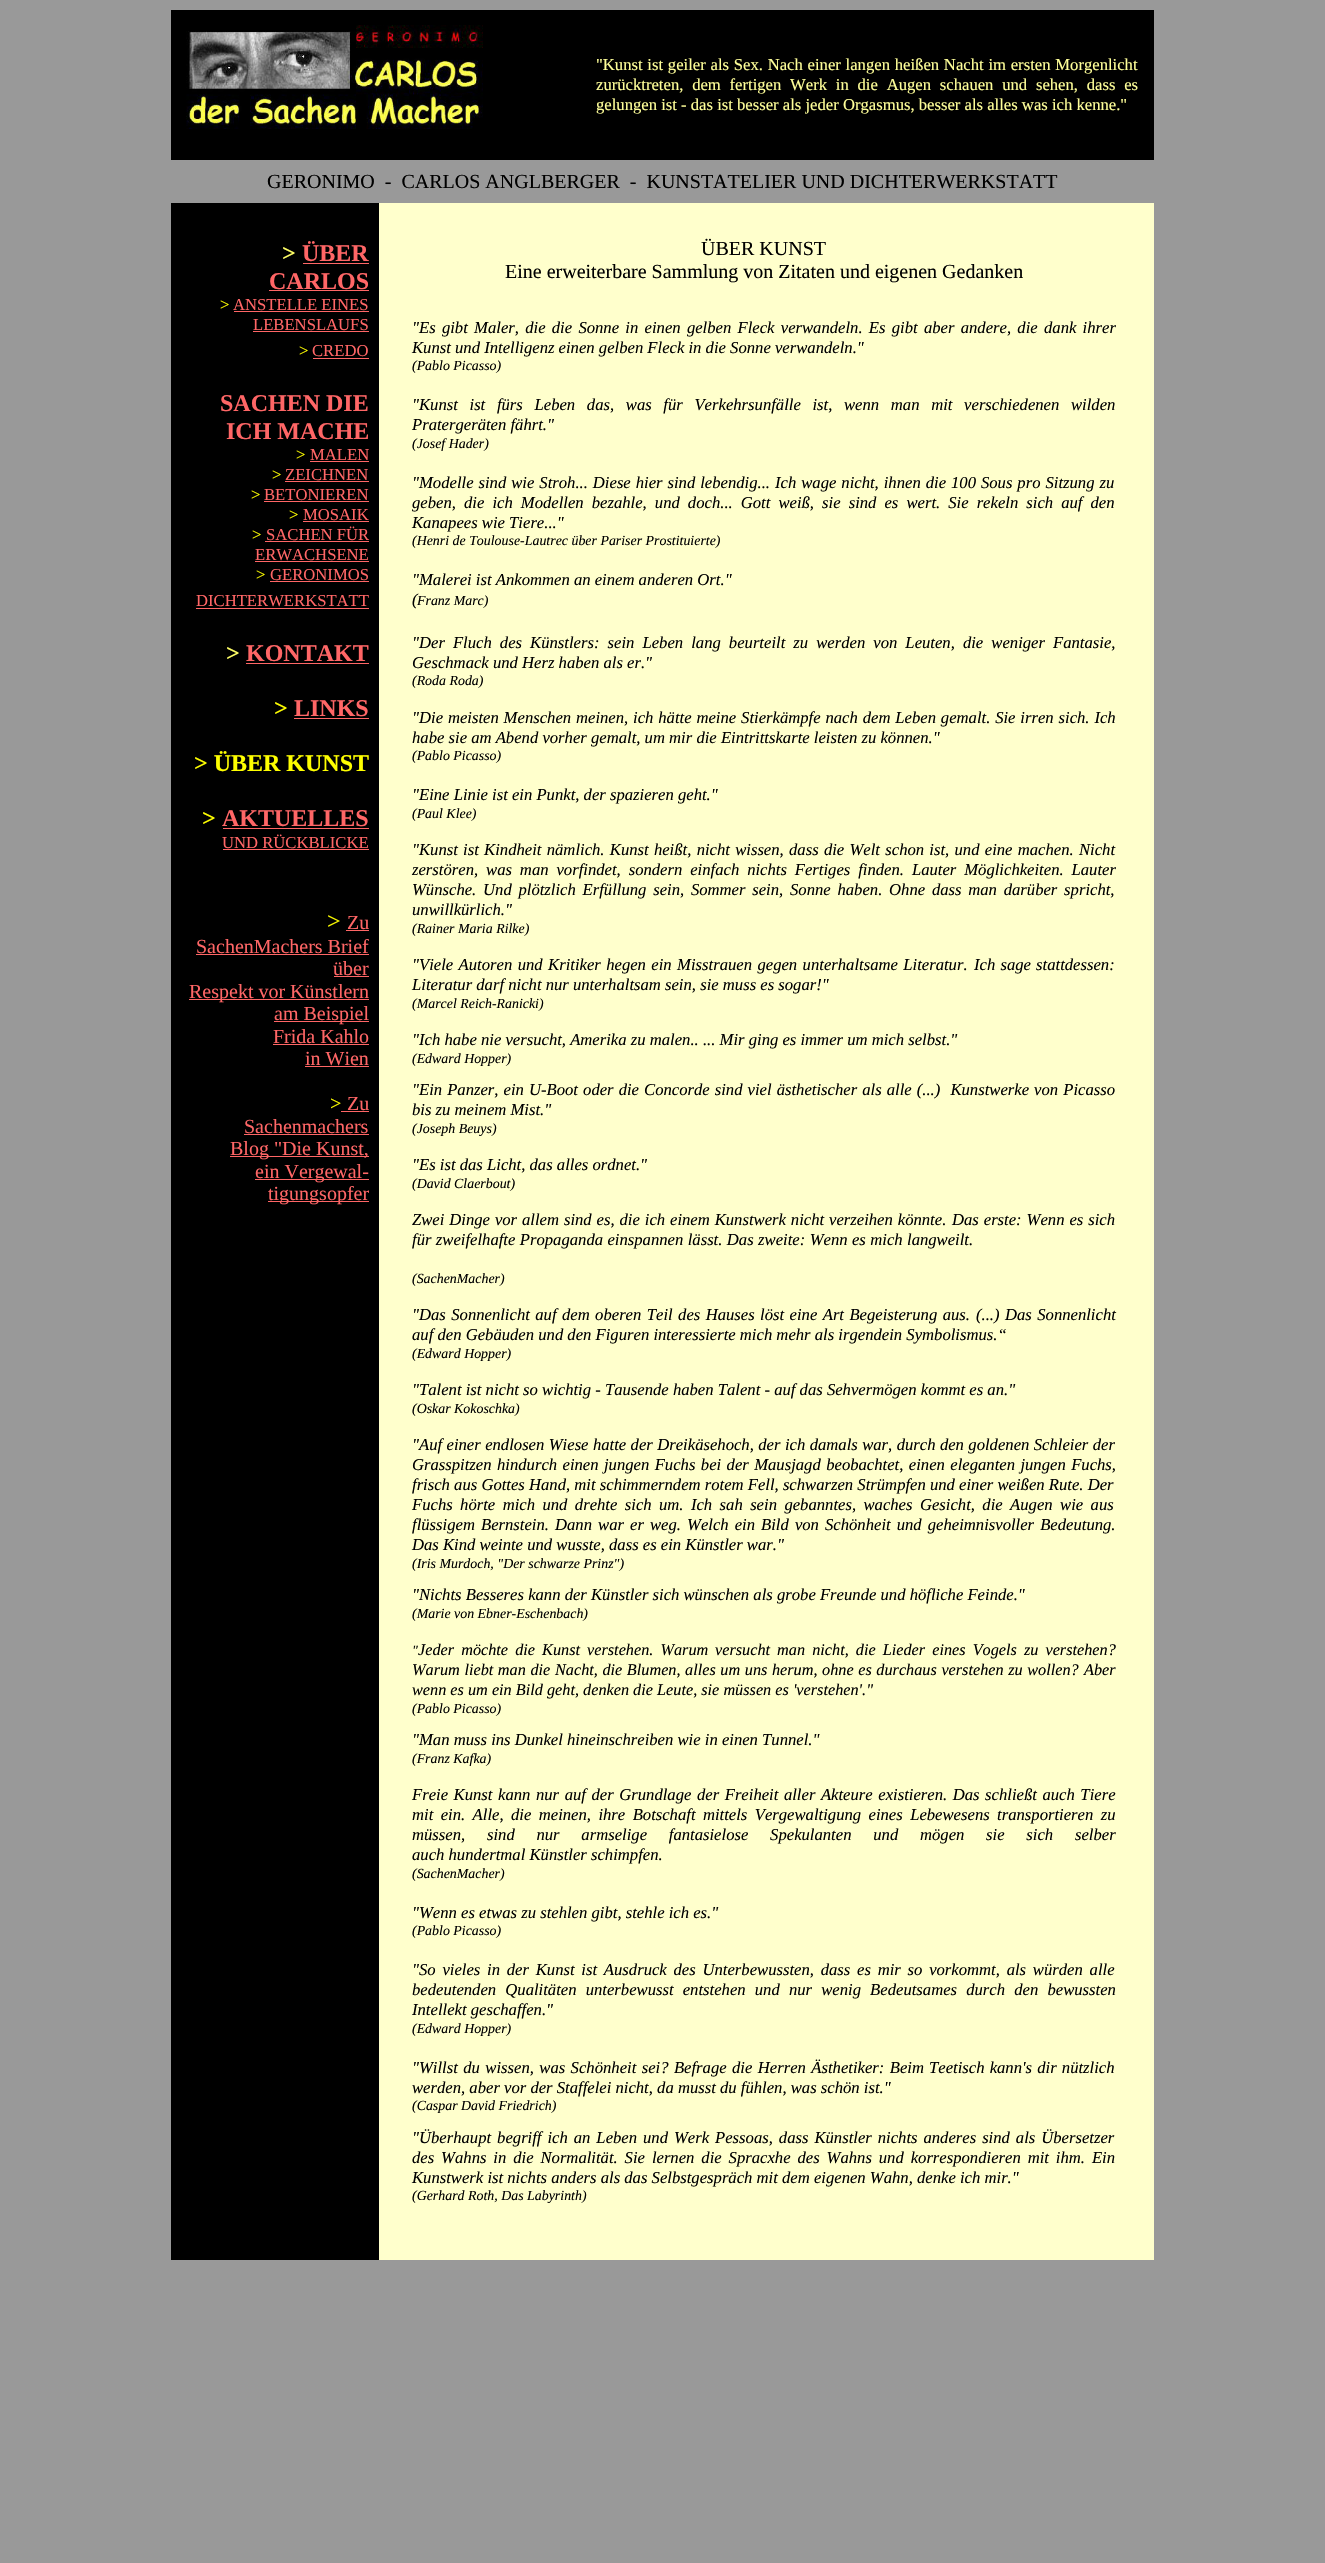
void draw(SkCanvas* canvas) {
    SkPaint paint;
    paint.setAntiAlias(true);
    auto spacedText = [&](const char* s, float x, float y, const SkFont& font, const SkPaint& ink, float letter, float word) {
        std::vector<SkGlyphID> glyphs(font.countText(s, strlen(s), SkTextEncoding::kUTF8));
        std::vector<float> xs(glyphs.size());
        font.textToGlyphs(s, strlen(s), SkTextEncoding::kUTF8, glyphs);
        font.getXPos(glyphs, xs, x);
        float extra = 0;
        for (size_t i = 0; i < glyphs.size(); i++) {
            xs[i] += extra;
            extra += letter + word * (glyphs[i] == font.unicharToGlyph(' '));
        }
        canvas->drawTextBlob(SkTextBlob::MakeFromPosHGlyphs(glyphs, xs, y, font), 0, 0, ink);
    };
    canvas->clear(0xFF999999);
    paint.setColor(0xFF000000);
    canvas->drawRect(SkRect::MakeXYWH(171, 10, 983, 150), paint);
    canvas->drawImageRect(SkImages::DeferredFromEncodedData(SkData::MakeFromFileName("img1.png")), SkRect::MakeXYWH(186, 25, 297, 104), SkSamplingOptions());
    SkFont font1(fontMgr->matchFamilyStyle("Liberation Serif", SkFontStyle::Normal()), 16.65f);
    font1.setSubpixel(true);
    paint.setColor(0xFFFFFF99);
    spacedText("\"Kunst ist geiler als Sex. Nach einer langen heißen Nacht im ersten Morgenlicht", 596, 70, font1, paint, 0, 0.6f);
    spacedText("zurücktreten, dem fertigen Werk in die Augen schauen und sehen, dass es", 596, 90, font1, paint, 0, 4.6f);
    canvas->drawString("gelungen ist - das ist besser als jeder Orgasmus, besser als alles was ich kenne.\"", 596, 110, font1, paint);
    SkFont font2(fontMgr->matchFamilyStyle("Liberation Serif", SkFontStyle::Normal()), 20);
    font2.setSubpixel(true);
    paint.setColor(0xFF000000);
    canvas->drawString("GERONIMO  -  CARLOS ANGLBERGER  -  KUNSTATELIER UND DICHTERWERKSTATT", 267, 188, font2, paint);
    canvas->drawRect(SkRect::MakeXYWH(171, 203, 208, 2057), paint);
    SkFont font3(fontMgr->matchFamilyStyle("Liberation Serif", SkFontStyle::Bold()), 24);
    font3.setSubpixel(true);
    paint.setColor(0xFFFFFF66);
    canvas->drawString(">", 282, 261, font3, paint);
    paint.setColor(0xFFFF6666);
    canvas->drawString("ÜBER", 302, 261, font3, paint);
    canvas->drawRect(SkRect::MakeXYWH(303, 263, 66, 1), paint);
    canvas->drawString("CARLOS", 269, 289, font3, paint);
    canvas->drawRect(SkRect::MakeXYWH(269, 290, 100, 1), paint);
    paint.setColor(0xFFFFFF00);
    canvas->drawString(">", 220, 310, font1, paint);
    paint.setColor(0xFFFF6666);
    canvas->drawString("ANSTELLE EINES", 233, 310, font1, paint);
    canvas->drawRect(SkRect::MakeXYWH(234, 311, 135, 1), paint);
    canvas->drawString("LEBENSLAUFS", 253, 330, font1, paint);
    canvas->drawRect(SkRect::MakeXYWH(253, 331, 116, 1), paint);
    paint.setColor(0xFFFFFF00);
    canvas->drawString(">", 299, 356, font1, paint);
    paint.setColor(0xFFFF6666);
    canvas->drawString("CREDO", 312, 356, font1, paint);
    canvas->drawRect(SkRect::MakeXYWH(313, 358, 56, 1), paint);
    canvas->drawString("SACHEN DIE", 220, 411, font3, paint);
    canvas->drawString("ICH MACHE", 226, 439, font3, paint);
    paint.setColor(0xFFFFFF00);
    canvas->drawString(">", 296, 460, font1, paint);
    paint.setColor(0xFFFF6666);
    canvas->drawString("MALEN", 310, 460, font1, paint);
    canvas->drawRect(SkRect::MakeXYWH(310, 461, 59, 1), paint);
    paint.setColor(0xFFFFFF00);
    canvas->drawString(">", 272, 480, font1, paint);
    paint.setColor(0xFFFF6666);
    canvas->drawString("ZEICHNEN", 285, 480, font1, paint);
    canvas->drawRect(SkRect::MakeXYWH(285, 481, 84, 1), paint);
    paint.setColor(0xFFFFFF00);
    canvas->drawString(">", 251, 500, font1, paint);
    paint.setColor(0xFFFF6666);
    canvas->drawString("BETONIEREN", 264, 500, font1, paint);
    canvas->drawRect(SkRect::MakeXYWH(264, 501, 105, 1), paint);
    paint.setColor(0xFFFFFF00);
    canvas->drawString(">", 289, 520, font1, paint);
    paint.setColor(0xFFFF6666);
    canvas->drawString("MOSAIK", 303, 520, font1, paint);
    canvas->drawRect(SkRect::MakeXYWH(303, 521, 66, 1), paint);
    paint.setColor(0xFFFFFF00);
    canvas->drawString(">", 252, 540, font1, paint);
    paint.setColor(0xFFFF6666);
    canvas->drawString("SACHEN FÜR", 266, 540, font1, paint);
    canvas->drawRect(SkRect::MakeXYWH(265, 541, 104, 1), paint);
    canvas->drawString("ERWACHSENE", 255, 560, font1, paint);
    canvas->drawRect(SkRect::MakeXYWH(255, 561, 114, 1), paint);
    paint.setColor(0xFFFFFF00);
    canvas->drawString(">", 256, 580, font1, paint);
    paint.setColor(0xFFFF6666);
    canvas->drawString("GERONIMOS", 270, 580, font1, paint);
    canvas->drawRect(SkRect::MakeXYWH(270, 581, 99, 1), paint);
    canvas->drawString("DICHTERWERKSTATT", 196, 606, font1, paint);
    canvas->drawRect(SkRect::MakeXYWH(196, 608, 173, 1), paint);
    paint.setColor(0xFFFFFF66);
    canvas->drawString(">", 226, 661, font3, paint);
    paint.setColor(0xFFFF6666);
    canvas->drawString("KONTAKT", 246, 661, font3, paint);
    canvas->drawRect(SkRect::MakeXYWH(246, 663, 123, 1), paint);
    paint.setColor(0xFFFFFF00);
    canvas->drawString(">", 274, 716, font3, paint);
    paint.setColor(0xFFFF6666);
    canvas->drawString("LINKS", 294, 716, font3, paint);
    canvas->drawRect(SkRect::MakeXYWH(294, 718, 75, 1), paint);
    paint.setColor(0xFFFFFF00);
    canvas->drawString("> ÜBER KUNST", 194, 771, font3, paint);
    canvas->drawString(">", 202, 826, font3, paint);
    paint.setColor(0xFFFF6666);
    canvas->drawString("AKTUELLES", 222, 826, font3, paint);
    canvas->drawRect(SkRect::MakeXYWH(223, 828, 146, 1), paint);
    canvas->drawString("UND RÜCKBLICKE", 222, 848, font1, paint);
    canvas->drawRect(SkRect::MakeXYWH(223, 849, 146, 1), paint);
    SkFont font4(fontMgr->matchFamilyStyle("Liberation Serif", SkFontStyle::Normal()), 24);
    font4.setSubpixel(true);
    paint.setColor(0xFFFFFF00);
    canvas->drawString(">", 327, 929, font4, paint);
    paint.setColor(0xFFFF6666);
    canvas->drawString("Zu", 347, 929, font2, paint);
    canvas->drawRect(SkRect::MakeXYWH(346, 930, 23, 1), paint);
    canvas->drawString("SachenMachers Brief", 196, 953, font2, paint);
    canvas->drawRect(SkRect::MakeXYWH(196, 954, 173, 1), paint);
    canvas->drawString("über", 333, 975, font2, paint);
    canvas->drawRect(SkRect::MakeXYWH(334, 976, 35, 1), paint);
    canvas->drawRect(SkRect::MakeXYWH(189, 999, 180, 1), paint);
    canvas->drawString("Respekt vor Künstlern", 189, 998, font2, paint);
    canvas->drawRect(SkRect::MakeXYWH(274, 1021, 95, 1), paint);
    canvas->drawString("am Beispiel", 274, 1020, font2, paint);
    canvas->drawString("Frida Kahlo", 273, 1043, font2, paint);
    canvas->drawRect(SkRect::MakeXYWH(273, 1044, 96, 1), paint);
    canvas->drawString("in Wien", 305, 1065, font2, paint);
    canvas->drawRect(SkRect::MakeXYWH(305, 1066, 64, 1), paint);
    paint.setColor(0xFFFFFF00);
    canvas->drawString(">", 330, 1110, font2, paint);
    paint.setColor(0xFFFF6666);
    canvas->drawRect(SkRect::MakeXYWH(341, 1111, 28, 1), paint);
    canvas->drawString("Zu", 347, 1110, font2, paint);
    canvas->drawString("Sachenmachers", 244, 1133, font2, paint);
    canvas->drawRect(SkRect::MakeXYWH(244, 1134, 125, 1), paint);
    canvas->drawRect(SkRect::MakeXYWH(230, 1156, 139, 1), paint);
    canvas->drawString("Blog \"Die Kunst,", 230, 1155, font2, paint);
    canvas->drawRect(SkRect::MakeXYWH(255, 1179, 114, 1), paint);
    canvas->drawString("ein Vergewal-", 255, 1178, font2, paint);
    canvas->drawRect(SkRect::MakeXYWH(268, 1201, 101, 1), paint);
    canvas->drawString("tigungsopfer", 268, 1200, font2, paint);
    paint.setColor(0xFFFFFFCC);
    canvas->drawRect(SkRect::MakeXYWH(379, 203, 775, 2057), paint);
    paint.setColor(0xFF000000);
    canvas->drawString("ÜBER KUNST", 701, 255, font2, paint);
    canvas->drawString("Eine erweiterbare Sammlung von Zitaten und eigenen Gedanken", 505, 278, font2, paint);
    SkFont font5(fontMgr->matchFamilyStyle("Liberation Serif", SkFontStyle::Italic()), 16.65f);
    font5.setSubpixel(true);
    spacedText("\"Es gibt Maler, die die Sonne in einen gelben Fleck verwandeln. Es gibt aber andere, die dank ihrer", 412, 333, font5, paint, 0, 2.1f);
    canvas->drawString("Kunst und Intelligenz einen gelben Fleck in die Sonne verwandeln.\"", 412, 353, font5, paint);
    SkFont font6(fontMgr->matchFamilyStyle("Liberation Serif", SkFontStyle::Italic()), 13.9f);
    font6.setSubpixel(true);
    canvas->drawString("(Pablo Picasso)", 412, 370, font6, paint);
    spacedText("\"Kunst ist fürs Leben das, was für Verkehrsunfälle ist, wenn man mit verschiedenen wilden", 412, 410, font5, paint, 0, 7.5f);
    canvas->drawString("Pratergeräten fährt.\"", 412, 430, font5, paint);
    canvas->drawString("(Josef Hader)", 412, 448, font6, paint);
    spacedText("\"Modelle sind wie Stroh... Diese hier sind lebendig... Ich wage nicht, ihnen die 100 Sous pro Sitzung zu", 412, 488, font5, paint, 0, 0.8f);
    spacedText("geben, die ich Modellen bezahle, und doch... Gott weiß, sie sind es wert. Sie rekeln sich auf den", 412, 508, font5, paint, 0, 3.9f);
    canvas->drawString("Kanapees wie Tiere...\"", 412, 528, font5, paint);
    canvas->drawString("(Henri de Toulouse-Lautrec über Pariser Prostituierte)", 412, 545, font6, paint);
    canvas->drawString("\"Malerei ist Ankommen an einem anderen Ort.\"", 412, 585, font5, paint);
    canvas->drawString("(", 412, 605, font5, paint);
    canvas->drawString("Franz Marc)", 417, 605, font6, paint);
    spacedText("\"Der Fluch des Künstlers: sein Leben lang beurteilt zu werden von Leuten, die weniger Fantasie,", 412, 648, font5, paint, 0, 3.9f);
    canvas->drawString("Geschmack und Herz haben als er.\"", 412, 668, font5, paint);
    canvas->drawString("(Roda Roda)", 412, 685, font6, paint);
    spacedText("\"Die meisten Menschen meinen, ich hätte meine Stierkämpfe nach dem Leben gemalt. Sie irren sich. Ich", 412, 723, font5, paint, 0, 0.7f);
    canvas->drawString("habe sie am Abend vorher gemalt, um mir die Eintrittskarte leisten zu können.\"", 412, 743, font5, paint);
    canvas->drawString("(Pablo Picasso)", 412, 760, font6, paint);
    canvas->drawString("\"Eine Linie ist ein Punkt, der spazieren geht.\"", 412, 800, font5, paint);
    canvas->drawString("(Paul Klee)", 412, 818, font6, paint);
    spacedText("\"Kunst ist Kindheit nämlich. Kunst heißt, nicht wissen, dass die Welt schon ist, und eine machen. Nicht", 412, 855, font5, paint, 0, 1.1f);
    spacedText("zerstören, was man vorfindet, sondern einfach nichts Fertiges finden. Lauter Möglichkeiten. Lauter", 412, 875, font5, paint, 0, 3.75f);
    spacedText("Wünsche. Und plötzlich Erfüllung sein, Sommer sein, Sonne haben. Ohne dass man darüber spricht,", 412, 895, font5, paint, 0, 2.6f);
    canvas->drawString("unwillkürlich.\"", 412, 915, font5, paint);
    canvas->drawString("(Rainer Maria Rilke)", 412, 933, font6, paint);
    spacedText("\"Viele Autoren und Kritiker hegen ein Misstrauen gegen unterhaltsame Literatur.", 412, 970, font5, paint, 0, 1.25f);
    spacedText("Ich sage stattdessen:", 974, 970, font5, paint, 0, 1);
    canvas->drawString("Literatur darf nicht nur unterhaltsam sein, sie muss es sogar!\"", 412, 990, font5, paint);
    canvas->drawString("(Marcel Reich-Ranicki)", 412, 1008, font6, paint);
    canvas->drawString("\"Ich habe nie versucht, Amerika zu malen.. ... Mir ging es immer um mich selbst.\"", 412, 1045, font5, paint);
    canvas->drawString("(Edward Hopper)", 412, 1063, font6, paint);
    spacedText("\"Ein Panzer, ein U-Boot oder die Concorde sind viel ästhetischer als alle (...)  Kunstwerke von Picasso", 412, 1095, font5, paint, 0, 0.9f);
    canvas->drawString("bis zu meinem Mist.\"", 412, 1115, font5, paint);
    canvas->drawString("(Joseph Beuys)", 412, 1133, font6, paint);
    canvas->drawString("\"Es ist das Licht, das alles ordnet.\"", 412, 1170, font5, paint);
    canvas->drawString("(David Claerbout)", 412, 1188, font6, paint);
    spacedText("Zwei Dinge vor allem sind es, die ich einem Kunstwerk nicht verzeihen könnte.", 412, 1225, font5, paint, 0, 0.75f);
    spacedText("Das erste: Wenn es sich", 952, 1225, font5, paint, 0, 0.75f);
    spacedText("für zweifelhafte Propaganda einspannen lässt. Das zweite: Wenn es mich langweilt.", 412, 1245, font5, paint, 0, 0.25f);
    canvas->drawString("(SachenMacher)", 412, 1283, font6, paint);
    spacedText("\"Das Sonnenlicht auf dem oberen Teil des Hauses löst eine Art Begeisterung aus.", 412, 1320, font5, paint, 0, 1.25f);
    spacedText("(...) Das Sonnenlicht", 976, 1320, font5, paint, 0, 1.25f);
    canvas->drawString("auf den Gebäuden und den Figuren interessierte mich mehr als irgendein Symbolismus.“", 412, 1340, font5, paint);
    canvas->drawString("(Edward Hopper)", 412, 1358, font6, paint);
    canvas->drawString("\"Talent ist nicht so wichtig - Tausende haben Talent - auf das Sehvermögen kommt es an.\"", 412, 1395, font5, paint);
    canvas->drawString("(Oskar Kokoschka)", 412, 1413, font6, paint);
    spacedText("\"Auf einer endlosen Wiese hatte der Dreikäsehoch, der ich damals war, durch den goldenen Schleier der", 412, 1450, font5, paint, 0, 0.25f);
    spacedText("Grasspitzen hindurch einen jungen Fuchs bei der Mausjagd beobachtet, einen eleganten jungen Fuchs,", 412, 1470, font5, paint, 0, 1.25f);
    canvas->drawString("frisch aus Gottes Hand, mit schimmerndem rotem Fell, schwarzen Strümpfen und einer weißen Rute. Der", 412, 1490, font5, paint);
    spacedText("Fuchs hörte mich und drehte sich um. Ich sah sein gebanntes, waches Gesicht, die Augen wie aus", 412, 1510, font5, paint, 0, 3.25f);
    spacedText("flüssigem Bernstein. Dann war er weg. Welch ein Bild von Schönheit und geheimnisvoller Bedeutung.", 412, 1530, font5, paint, 0, 1.9f);
    canvas->drawString("Das Kind weinte und wusste, dass es ein Künstler war.\"", 412, 1550, font5, paint);
    canvas->drawString("(Iris Murdoch, \"Der schwarze Prinz\")", 412, 1568, font6, paint);
    canvas->drawString("\"Nichts Besseres kann der Künstler sich wünschen als grobe Freunde und höfliche Feinde.\"", 412, 1600, font5, paint);
    canvas->drawString("(Marie von Ebner-Eschenbach)", 412, 1618, font6, paint);
    SkFont font7(fontMgr->matchFamilyStyle("Liberation Serif", SkFontStyle::Italic()), 14);
    font7.setSubpixel(true);
    canvas->drawString("\"", 412, 1655, font7, paint);
    SkFont font8(fontMgr->matchFamilyStyle("Liberation Serif", SkFontStyle::Italic()), 16.25f);
    font8.setSubpixel(true);
    spacedText("Jeder möchte die Kunst verstehen. Warum", 418, 1655, font8, paint, 0, 3);
    spacedText("versucht man nicht, die Lieder eines Vogels zu verstehen?", 715, 1655, font8, paint, 0, 3);
    spacedText("Warum liebt man die", 412, 1675, font8, paint, 0, 0.5f);
    spacedText("Nacht, die Blumen, alles um uns herum, ohne es durchaus verstehen zu wollen?", 555, 1675, font8, paint, 0, 0.5f);
    canvas->drawString("Aber", 1084, 1675, font8, paint);
    canvas->drawString("wenn es um ein Bild geht, denken die Leute, sie müssen es 'verstehen'.\"", 412, 1695, font8, paint);
    canvas->drawString("(Pablo Picasso)", 412, 1713, font6, paint);
    canvas->drawString("\"Man muss ins Dunkel hineinschreiben wie in einen Tunnel.\"", 412, 1745, font5, paint);
    canvas->drawString("(Franz Kafka)", 412, 1763, font6, paint);
    spacedText("Freie Kunst kann nur auf der Grundlage der Freiheit aller Akteure existieren. Das schließt auch Tiere", 412, 1800, font5, paint, 0, 1.4f);
    spacedText("mit ein. Alle, die meinen, ihre Botschaft mittels Vergewaltigung eines Lebewesens transportieren zu", 412, 1820, font5, paint, 0, 3.25f);
    spacedText("müssen, sind nur armselige fantasielose Spekulanten und mögen sie sich selber", 412, 1840, font5, paint, 0, 17.6f);
    canvas->drawString("auch hundertmal Künstler schimpfen.", 412, 1860, font5, paint);
    canvas->drawString("(SachenMacher)", 412, 1878, font6, paint);
    canvas->drawString("\"Wenn es etwas zu stehlen gibt, stehle ich es.\"", 412, 1918, font5, paint);
    canvas->drawString("(Pablo Picasso)", 412, 1935, font6, paint);
    spacedText("\"So vieles in der Kunst ist Ausdruck des Unterbewussten, dass es mir so vorkommt, als würden alle", 412, 1975, font5, paint, 0, 2.6f);
    spacedText("bedeutenden Qualitäten unterbewusst entstehen und nur wenig Bedeutsames durch den bewussten", 412, 1995, font5, paint, 0, 5);
    canvas->drawString("Intellekt geschaffen.\"", 412, 2015, font5, paint);
    canvas->drawString("(Edward Hopper)", 412, 2033, font6, paint);
    spacedText("\"Willst du wissen, was Schönheit sei? Befrage die Herren Ästhetiker: Beim", 412, 2073, font5, paint, 0, 1.25f);
    spacedText("Teetisch kann's dir nützlich", 929, 2073, font5, paint, 0, 1);
    canvas->drawString("werden, aber vor der Staffelei nicht, da musst du fühlen, was schön ist.\"", 412, 2093, font5, paint);
    canvas->drawString("(Caspar David Friedrich)", 412, 2110, font6, paint);
    spacedText("\"Überhaupt begriff ich an Leben und Werk Pessoas, dass Künstler nichts anderes sind als Übersetzer", 412, 2143, font5, paint, 0, 1.8f);
    spacedText("des Wahns in die Normalität. Sie lernen die Spracxhe des Wahns und korrespondieren mit ihm. Ein", 412, 2163, font5, paint, 0, 2.75f);
    canvas->drawString("Kunstwerk ist nichts anders als das Selbstgespräch mit dem eigenen Wahn, denke ich mir.\"", 412, 2183, font5, paint);
    canvas->drawString("(Gerhard Roth, Das Labyrinth)", 412, 2200, font6, paint);
}
